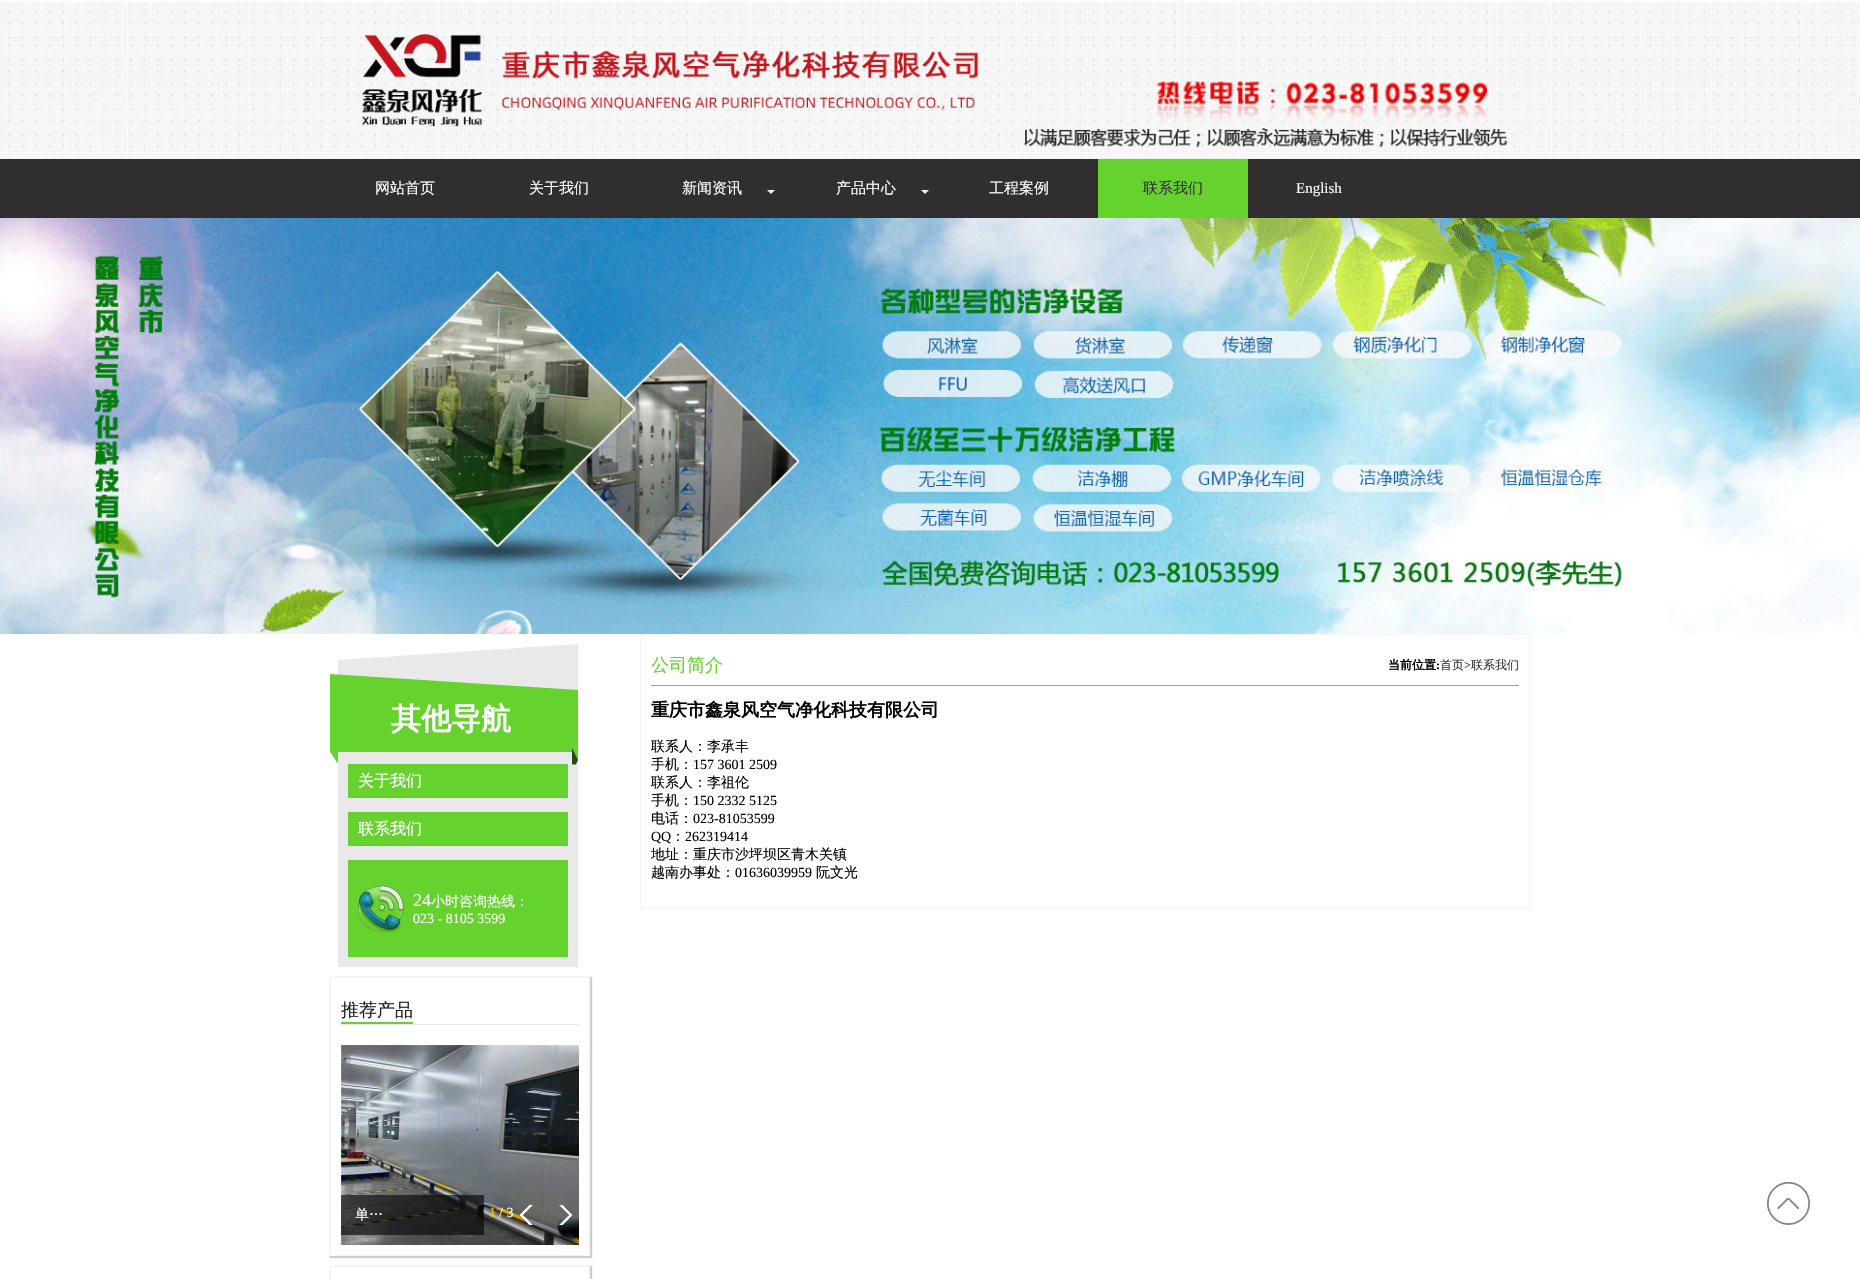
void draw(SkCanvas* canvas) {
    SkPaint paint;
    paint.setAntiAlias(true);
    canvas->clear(0xFFFFFFFF);
    canvas->drawImageRect(SkImages::DeferredFromEncodedData(SkData::MakeFromFileName("img1.png")), SkRect::MakeXYWH(0, 2, 1860, 157), SkSamplingOptions());
    paint.setColor(0xFF302E2E);
    canvas->drawRect(SkRect::MakeXYWH(0, 159, 1860, 59), paint);
    SkFont font1(fontMgr->matchFamilyStyle("WenQuanYi Zen Hei", SkFontStyle(500, SkFontStyle::kNormal_Width, SkFontStyle::kUpright_Slant)), 15);
    font1.setSubpixel(true);
    paint.setColor(0xFFFFFFFF);
    canvas->drawString("网站首页", 375, 193, font1, paint);
    canvas->drawString("关于我们", 529, 193, font1, paint);
    canvas->drawString("新闻资讯", 682, 193, font1, paint);
    paint.setColor(0xFFF5F0F0);
    canvas->drawPath(SkPathBuilder().moveTo(767, 190).lineTo(775, 190).lineTo(771, 194).close().detach(), paint);
    paint.setColor(0xFFFFFFFF);
    canvas->drawString("产品中心", 836, 193, font1, paint);
    paint.setColor(0xFFF5F0F0);
    canvas->drawPath(SkPathBuilder().moveTo(921, 190).lineTo(929, 190).lineTo(925, 194).close().detach(), paint);
    paint.setColor(0xFFFFFFFF);
    canvas->drawString("工程案例", 989, 193, font1, paint);
    paint.setColor(0xFF66D22E);
    canvas->drawRect(SkRect::MakeXYWH(1098, 159, 150, 59), paint);
    paint.setColor(0xFF333333);
    canvas->drawString("联系我们", 1143, 193, font1, paint);
    SkFont font2(fontMgr->matchFamilyStyle("Liberation Serif", SkFontStyle::Normal()), 15);
    font2.setSubpixel(true);
    paint.setColor(0xFFFFFFFF);
    canvas->drawString("English", 1296, 193, font2, paint);
    canvas->drawImageRect(SkImages::DeferredFromEncodedData(SkData::MakeFromFileName("img2.png")), SkRect::MakeXYWH(0, 218, 1860, 416), SkSamplingOptions());
    paint.setColor(0xFFE9E9E9);
    canvas->drawPath(SkPathBuilder().moveTo(578, 644).lineTo(338, 660).lineTo(338, 967).lineTo(578, 967).close().detach(), paint);
    paint.setColor(0xFF66D22E);
    canvas->drawPath(SkPathBuilder().moveTo(578, 690).lineTo(330, 674).lineTo(330, 764).lineTo(578, 764).close().detach(), paint);
    paint.setColor(0xFFE9E9E9);
    canvas->drawPath(SkPathBuilder().moveTo(578, 764).lineTo(330, 764).lineTo(330, 752).lineTo(572, 752).close().detach(), paint);
    SkFont font3(fontMgr->matchFamilyStyle("WenQuanYi Zen Hei", SkFontStyle::Bold()), 30);
    font3.setSubpixel(true);
    paint.setColor(0xFFFFFFFF);
    canvas->drawString("其他导航", 391, 729, font3, paint);
    paint.setColor(0xFF66D22E);
    canvas->drawPath(SkPathBuilder().moveTo(338, 752).lineTo(338, 764).lineTo(330, 752).close().detach(), paint);
    paint.setColor(0xFFFFFFFF);
    canvas->drawPath(SkPathBuilder().moveTo(338, 764).lineTo(330, 764).lineTo(330, 752).close().detach(), paint);
    canvas->drawPath(SkPathBuilder().moveTo(578, 764.5f).lineTo(578, 760).lineTo(576, 764.5f).close().detach(), paint);
    paint.setColor(0xFF234C0F);
    canvas->drawPath(SkPathBuilder().moveTo(576, 764.5f).lineTo(572, 764.5f).lineTo(572, 748).lineTo(578, 760).close().detach(), paint);
    paint.setColor(0xFF66D22E);
    canvas->drawRect(SkRect::MakeXYWH(348, 764, 220, 34), paint);
    SkFont font4(fontMgr->matchFamilyStyle("WenQuanYi Zen Hei", SkFontStyle(500, SkFontStyle::kNormal_Width, SkFontStyle::kUpright_Slant)), 16);
    font4.setSubpixel(true);
    paint.setColor(0xFFFFFFFF);
    canvas->drawString("关于我们", 358, 786, font4, paint);
    paint.setColor(0xFF66D22E);
    canvas->drawRect(SkRect::MakeXYWH(348, 812, 220, 34), paint);
    paint.setColor(0xFFFFFFFF);
    canvas->drawString("联系我们", 358, 834, font4, paint);
    paint.setColor(0xFF66D22E);
    canvas->drawRect(SkRect::MakeXYWH(348, 860, 220, 97), paint);
    canvas->drawImageRect(SkImages::DeferredFromEncodedData(SkData::MakeFromFileName("img3.png")), SkRect::MakeXYWH(358, 885, 46, 48), SkSamplingOptions());
    SkFont font5(fontMgr->matchFamilyStyle("Liberation Serif", SkFontStyle::Normal()), 18);
    font5.setSubpixel(true);
    paint.setColor(0xFFFFFFFF);
    canvas->drawString("24", 413, 906, font5, paint);
    SkFont font6(fontMgr->matchFamilyStyle("WenQuanYi Zen Hei", SkFontStyle(500, SkFontStyle::kNormal_Width, SkFontStyle::kUpright_Slant)), 14);
    font6.setSubpixel(true);
    canvas->drawString("小时咨询热线：", 431, 906, font6, paint);
    SkFont font7(fontMgr->matchFamilyStyle("Liberation Serif", SkFontStyle::Normal()), 14);
    font7.setSubpixel(true);
    canvas->drawString("023 - 8105 3599", 413, 923, font7, paint);
    canvas->save();
    canvas->clipPath(SkPathBuilder(SkPathFillType::kEvenOdd).moveTo(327, 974).lineTo(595, 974).lineTo(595, 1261).lineTo(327, 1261).close().moveTo(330, 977).lineTo(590, 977).lineTo(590, 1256).lineTo(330, 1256).close().detach(), true);
    paint.setColor(0xFFCFCECE);
    paint.setMaskFilter(SkMaskFilter::MakeBlur(kNormal_SkBlurStyle, 0.5f));
    canvas->drawRect(SkRect::MakeXYWH(330, 977, 262, 281), paint);
    paint.setMaskFilter(nullptr);
    canvas->restore();
    paint.setStyle(SkPaint::kStroke_Style);
    paint.setStrokeWidth(1);
    paint.setColor(0xFFF4F4F4);
    canvas->drawRect(SkRect::MakeXYWH(330.5f, 977.5f, 259, 278), paint);
    paint.setStyle(SkPaint::kFill_Style);
    paint.setColor(0xFFE8E8E8);
    canvas->drawRect(SkRect::MakeXYWH(341, 1024, 238, 1), paint);
    paint.setColor(0xFF66D22E);
    canvas->drawRect(SkRect::MakeXYWH(341, 1022, 72, 2), paint);
    SkFont font8(fontMgr->matchFamilyStyle("WenQuanYi Zen Hei", SkFontStyle(500, SkFontStyle::kNormal_Width, SkFontStyle::kUpright_Slant)), 18);
    font8.setSubpixel(true);
    paint.setColor(0xFF1E1E1E);
    canvas->drawString("推荐产品", 341, 1016, font8, paint);
    canvas->drawImageRect(SkImages::DeferredFromEncodedData(SkData::MakeFromFileName("img4.png")), SkRect::MakeXYWH(341, 1045, 238, 200), SkSamplingOptions());
    paint.setColor(0x99000000);
    canvas->drawRect(SkRect::MakeXYWH(341, 1195, 143, 40), paint);
    paint.setColor(0xFFFFFFFF);
    canvas->drawString("单…", 355, 1219, font6, paint);
    paint.setColor(0xFFFFC000);
    canvas->drawString("1", 489, 1217, font7, paint);
    paint.setColor(0xFFFFFFFF);
    canvas->drawString("/ 3", 499, 1217, font7, paint);
    canvas->drawImageRect(SkImages::DeferredFromEncodedData(SkData::MakeFromFileName("img5.png")), SkRect::MakeXYWH(519, 1205, 14, 20), SkSamplingOptions());
    canvas->drawImageRect(SkImages::DeferredFromEncodedData(SkData::MakeFromFileName("img6.png")), SkRect::MakeXYWH(559, 1205, 14, 20), SkSamplingOptions());
    canvas->save();
    canvas->clipPath(SkPathBuilder(SkPathFillType::kEvenOdd).moveTo(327, 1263).lineTo(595, 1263).lineTo(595, 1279).lineTo(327, 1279).close().moveTo(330, 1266).lineTo(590, 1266).lineTo(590, 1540).lineTo(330, 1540).close().detach(), true);
    paint.setColor(0xFFCFCECE);
    paint.setMaskFilter(SkMaskFilter::MakeBlur(kNormal_SkBlurStyle, 0.5f));
    canvas->drawRect(SkRect::MakeXYWH(330, 1266, 262, 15), paint);
    paint.setMaskFilter(nullptr);
    canvas->restore();
    paint.setStyle(SkPaint::kStroke_Style);
    paint.setColor(0xFFF4F4F4);
    canvas->drawRect(SkRect::MakeXYWH(330.5f, 1266.5f, 259, 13), paint);
    canvas->drawRect(SkRect::MakeXYWH(640.5f, 634.5f, 889, 274), paint);
    paint.setStyle(SkPaint::kFill_Style);
    paint.setColor(0xFF66D22E);
    canvas->drawRect(SkRect::MakeXYWH(651, 685, 868, 1), paint);
    canvas->drawString("公司简介", 651, 671, font8, paint);
    SkFont font9(fontMgr->matchFamilyStyle("WenQuanYi Zen Hei", SkFontStyle::Bold()), 12);
    font9.setSubpixel(true);
    paint.setColor(0xFF000000);
    canvas->drawString("当前位置", 1388, 669, font9, paint);
    SkFont font10(fontMgr->matchFamilyStyle("Liberation Serif", SkFontStyle::Bold()), 12);
    font10.setSubpixel(true);
    canvas->drawString(":", 1436, 669, font10, paint);
    SkFont font11(fontMgr->matchFamilyStyle("WenQuanYi Zen Hei", SkFontStyle(500, SkFontStyle::kNormal_Width, SkFontStyle::kUpright_Slant)), 12);
    font11.setSubpixel(true);
    paint.setColor(0xFF333333);
    canvas->drawString("首页", 1440, 669, font11, paint);
    SkFont font12(fontMgr->matchFamilyStyle("Liberation Serif", SkFontStyle::Normal()), 12);
    font12.setSubpixel(true);
    canvas->drawString(">", 1464, 669, font12, paint);
    canvas->drawString("联系我们", 1471, 669, font11, paint);
    SkFont font13(fontMgr->matchFamilyStyle("WenQuanYi Zen Hei", SkFontStyle::Bold()), 18);
    font13.setSubpixel(true);
    paint.setColor(0xFF000000);
    canvas->drawString("重庆市鑫泉风空气净化科技有限公司", 651, 716, font13, paint);
    canvas->drawString("联系人：李承丰", 651, 751, font6, paint);
    canvas->drawString("手机：", 651, 769, font6, paint);
    canvas->drawString("157 3601 2509", 693, 769, font7, paint);
    canvas->drawString("联系人：李祖伦", 651, 787, font6, paint);
    canvas->drawString("手机：", 651, 805, font6, paint);
    canvas->drawString("150 2332 5125", 693, 805, font7, paint);
    canvas->drawString("电话：", 651, 823, font6, paint);
    canvas->drawString("023-81053599", 693, 823, font7, paint);
    canvas->drawString("QQ", 651, 841, font7, paint);
    canvas->drawString("：", 671, 841, font6, paint);
    canvas->drawString("262319414", 685, 841, font7, paint);
    canvas->drawString("地址：重庆市沙坪坝区青木关镇", 651, 859, font6, paint);
    canvas->drawString("越南办事处：", 651, 877, font6, paint);
    canvas->drawString("01636039959", 735, 877, font7, paint);
    canvas->drawString("阮文光", 816, 877, font6, paint);
    canvas->drawImageRect(SkImages::DeferredFromEncodedData(SkData::MakeFromFileName("img7.png")), SkRect::MakeXYWH(1767, 1182, 43, 43), SkSamplingOptions());
}
